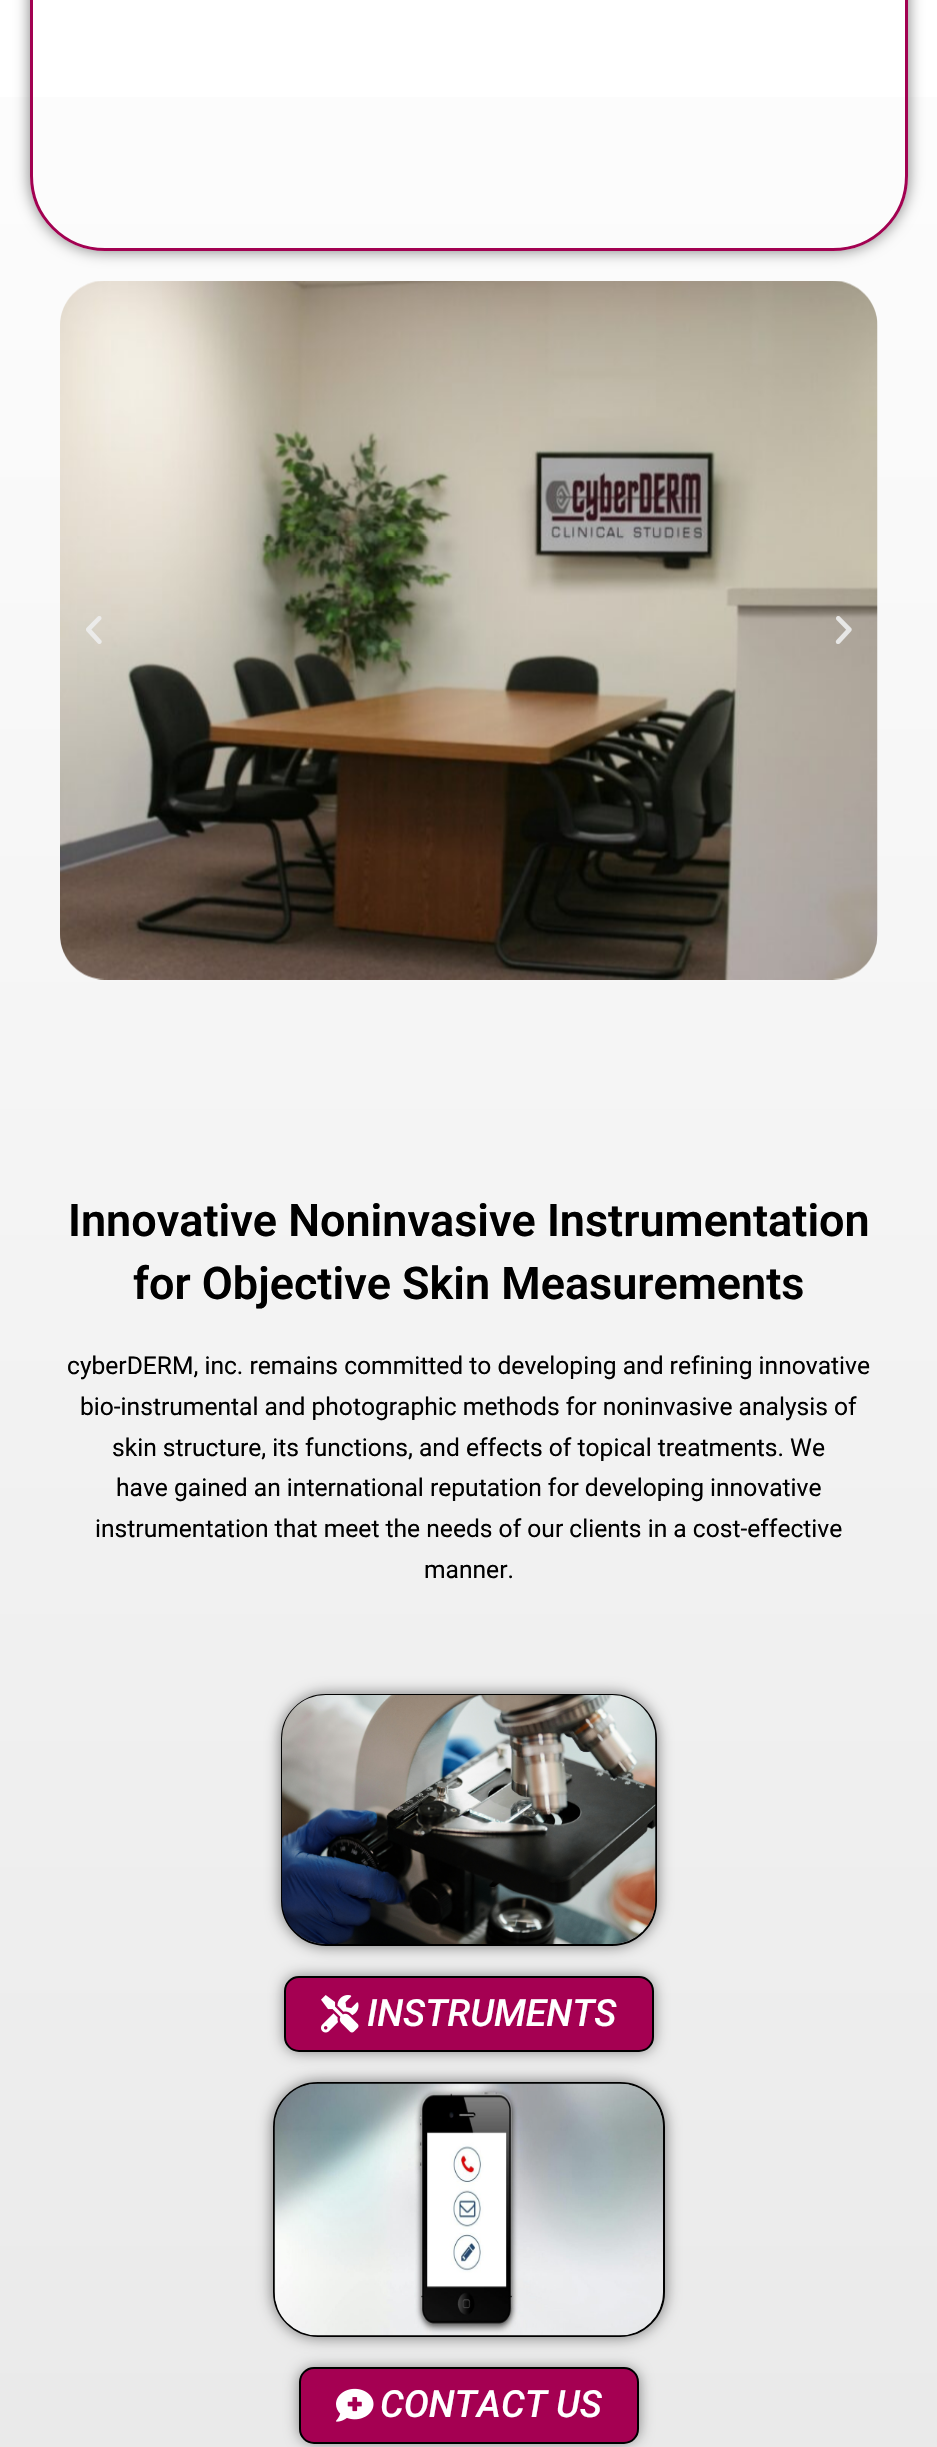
void draw(SkCanvas* canvas) {
    SkPaint paint;
    paint.setAntiAlias(true);
    canvas->clear(0xFFFFFFFF);
    {
        const SkColor colors[] = {0xFFE9E9E9, 0xFFFFFFFF};
        const float stops[] = {0.03f, 0.93f};
        const SkPoint ends[] = {{469, 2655}, {469, -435}};
        paint.setShader(SkGradientShader::MakeLinear(ends, colors, stops, 2, SkTileMode::kClamp));
        paint.setAlpha(255);
    }
    canvas->drawRect(SkRect::MakeXYWH(0, 97, 937, 2350), paint);
    canvas->save();
    canvas->clipPath(SkPathBuilder(SkPathFillType::kEvenOdd).moveTo(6, 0).lineTo(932, 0).lineTo(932, 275).lineTo(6, 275).close().moveTo(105, -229).lineTo(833, -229).cubicTo(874.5f, -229, 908, -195.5f, 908, -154).lineTo(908, 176).cubicTo(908, 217.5f, 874.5f, 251, 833, 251).lineTo(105, 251).cubicTo(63.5f, 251, 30, 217.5f, 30, 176).lineTo(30, -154).cubicTo(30, -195.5f, 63.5f, -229, 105, -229).close().detach(), true);
    paint.setShader(nullptr);
    paint.setColor(0x80000000);
    paint.setMaskFilter(SkMaskFilter::MakeBlur(kNormal_SkBlurStyle, 7.5f));
    canvas->drawRoundRect(SkRect::MakeXYWH(30, -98, 878, 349), 75, 75, paint);
    paint.setMaskFilter(nullptr);
    canvas->restore();
    paint.setStyle(SkPaint::kStroke_Style);
    paint.setStrokeWidth(3);
    paint.setColor(0xFFA20151);
    canvas->drawRoundRect(SkRect::MakeXYWH(31.5f, -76.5f, 875, 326), 73.5f, 73.5f, paint);
    canvas->drawImageRect(SkImages::DeferredFromEncodedData(SkData::MakeFromFileName("img1.png")), SkRect::MakeXYWH(60, 281, 818, 699), SkSamplingOptions());
    canvas->drawImageRect(SkImages::DeferredFromEncodedData(SkData::MakeFromFileName("img2.png")), SkRect::MakeXYWH(86, 616, 16, 28), SkSamplingOptions());
    canvas->drawImageRect(SkImages::DeferredFromEncodedData(SkData::MakeFromFileName("img3.png")), SkRect::MakeXYWH(835, 616, 17, 28), SkSamplingOptions());
    SkFont font1(fontMgr->matchFamilyStyle("Roboto", SkFontStyle(600, SkFontStyle::kNormal_Width, SkFontStyle::kUpright_Slant)), 45);
    font1.setSubpixel(true);
    paint.setStyle(SkPaint::kFill_Style);
    paint.setColor(0xFF000000);
    canvas->drawString("Innovative Noninvasive Instrumentation", 68, 1236, font1, paint);
    canvas->drawString("for Objective Skin Measurements", 133, 1299, font1, paint);
    SkFont font2(fontMgr->matchFamilyStyle("Roboto", SkFontStyle::Normal()), 24.6f);
    font2.setSubpixel(true);
    canvas->drawString("cyberDERM, inc. remains committed to developing and refining innovative", 67, 1374, font2, paint);
    canvas->drawString("bio-instrumental and photographic methods for noninvasive analysis of", 80, 1415, font2, paint);
    canvas->drawString("skin structure, its functions, and effects of topical treatments. We", 112, 1456, font2, paint);
    canvas->drawString("have gained an international reputation for developing innovative", 116, 1496, font2, paint);
    canvas->drawString("instrumentation that meet the needs of our clients in a cost-effective", 95, 1537, font2, paint);
    canvas->drawString("manner.", 424, 1578, font2, paint);
    paint.setColor(0x80000000);
    paint.setMaskFilter(SkMaskFilter::MakeBlur(kNormal_SkBlurStyle, 7.5f));
    canvas->drawRoundRect(SkRect::MakeXYWH(281, 1694, 376, 252), 45, 45, paint);
    paint.setMaskFilter(nullptr);
    paint.setStyle(SkPaint::kStroke_Style);
    paint.setStrokeWidth(2);
    paint.setColor(0xFF000000);
    canvas->drawRoundRect(SkRect::MakeXYWH(282, 1695, 374, 250), 44, 44, paint);
    canvas->drawImageRect(SkImages::DeferredFromEncodedData(SkData::MakeFromFileName("img4.png")), SkRect::MakeXYWH(282, 1695, 374, 249), SkSamplingOptions());
    paint.setStyle(SkPaint::kFill_Style);
    paint.setColor(0x80000000);
    paint.setMaskFilter(SkMaskFilter::MakeBlur(kNormal_SkBlurStyle, 7.5f));
    canvas->drawRoundRect(SkRect::MakeXYWH(285, 1977, 368, 74), 14, 14, paint);
    paint.setMaskFilter(nullptr);
    paint.setColor(0xFFA50052);
    canvas->drawRoundRect(SkRect::MakeXYWH(285, 1977, 368, 74), 14, 14, paint);
    paint.setStyle(SkPaint::kStroke_Style);
    paint.setColor(0xFF000000);
    canvas->drawRoundRect(SkRect::MakeXYWH(285, 1977, 368, 74), 14, 14, paint);
    canvas->drawImageRect(SkImages::DeferredFromEncodedData(SkData::MakeFromFileName("img5.png")), SkRect::MakeXYWH(321, 1995, 38, 38), SkSamplingOptions());
    SkFont font3(fontMgr->matchFamilyStyle("Roboto", SkFontStyle(500, SkFontStyle::kNormal_Width, SkFontStyle::kItalic_Slant)), 37.5f);
    font3.setSubpixel(true);
    paint.setStyle(SkPaint::kFill_Style);
    paint.setColor(0xFFFFFFFF);
    canvas->drawString("INSTRUMENTS", 367, 2026, font3, paint);
    paint.setColor(0x80000000);
    paint.setMaskFilter(SkMaskFilter::MakeBlur(kNormal_SkBlurStyle, 7.5f));
    canvas->drawRoundRect(SkRect::MakeXYWH(273, 2082, 392, 255), 45, 45, paint);
    paint.setMaskFilter(nullptr);
    paint.setStyle(SkPaint::kStroke_Style);
    paint.setColor(0xFF000000);
    canvas->drawRoundRect(SkRect::MakeXYWH(274, 2083, 390, 253), 44, 44, paint);
    canvas->drawImageRect(SkImages::DeferredFromEncodedData(SkData::MakeFromFileName("img6.png")), SkRect::MakeXYWH(274, 2083, 389, 253), SkSamplingOptions());
    paint.setStyle(SkPaint::kFill_Style);
    paint.setColor(0x80000000);
    paint.setMaskFilter(SkMaskFilter::MakeBlur(kNormal_SkBlurStyle, 7.5f));
    canvas->drawRoundRect(SkRect::MakeXYWH(300, 2369, 338, 73), 14, 14, paint);
    paint.setMaskFilter(nullptr);
    paint.setColor(0xFFA50052);
    canvas->drawRoundRect(SkRect::MakeXYWH(300, 2368, 338, 75), 14, 14, paint);
    paint.setStyle(SkPaint::kStroke_Style);
    paint.setColor(0xFF000000);
    canvas->drawRoundRect(SkRect::MakeXYWH(300, 2368, 338, 75), 14, 14, paint);
    canvas->drawImageRect(SkImages::DeferredFromEncodedData(SkData::MakeFromFileName("img7.png")), SkRect::MakeXYWH(336, 2388, 38, 34), SkSamplingOptions());
    paint.setStyle(SkPaint::kFill_Style);
    paint.setColor(0xFFFFFFFF);
    canvas->drawString("CONTACT US", 380, 2417, font3, paint);
}
